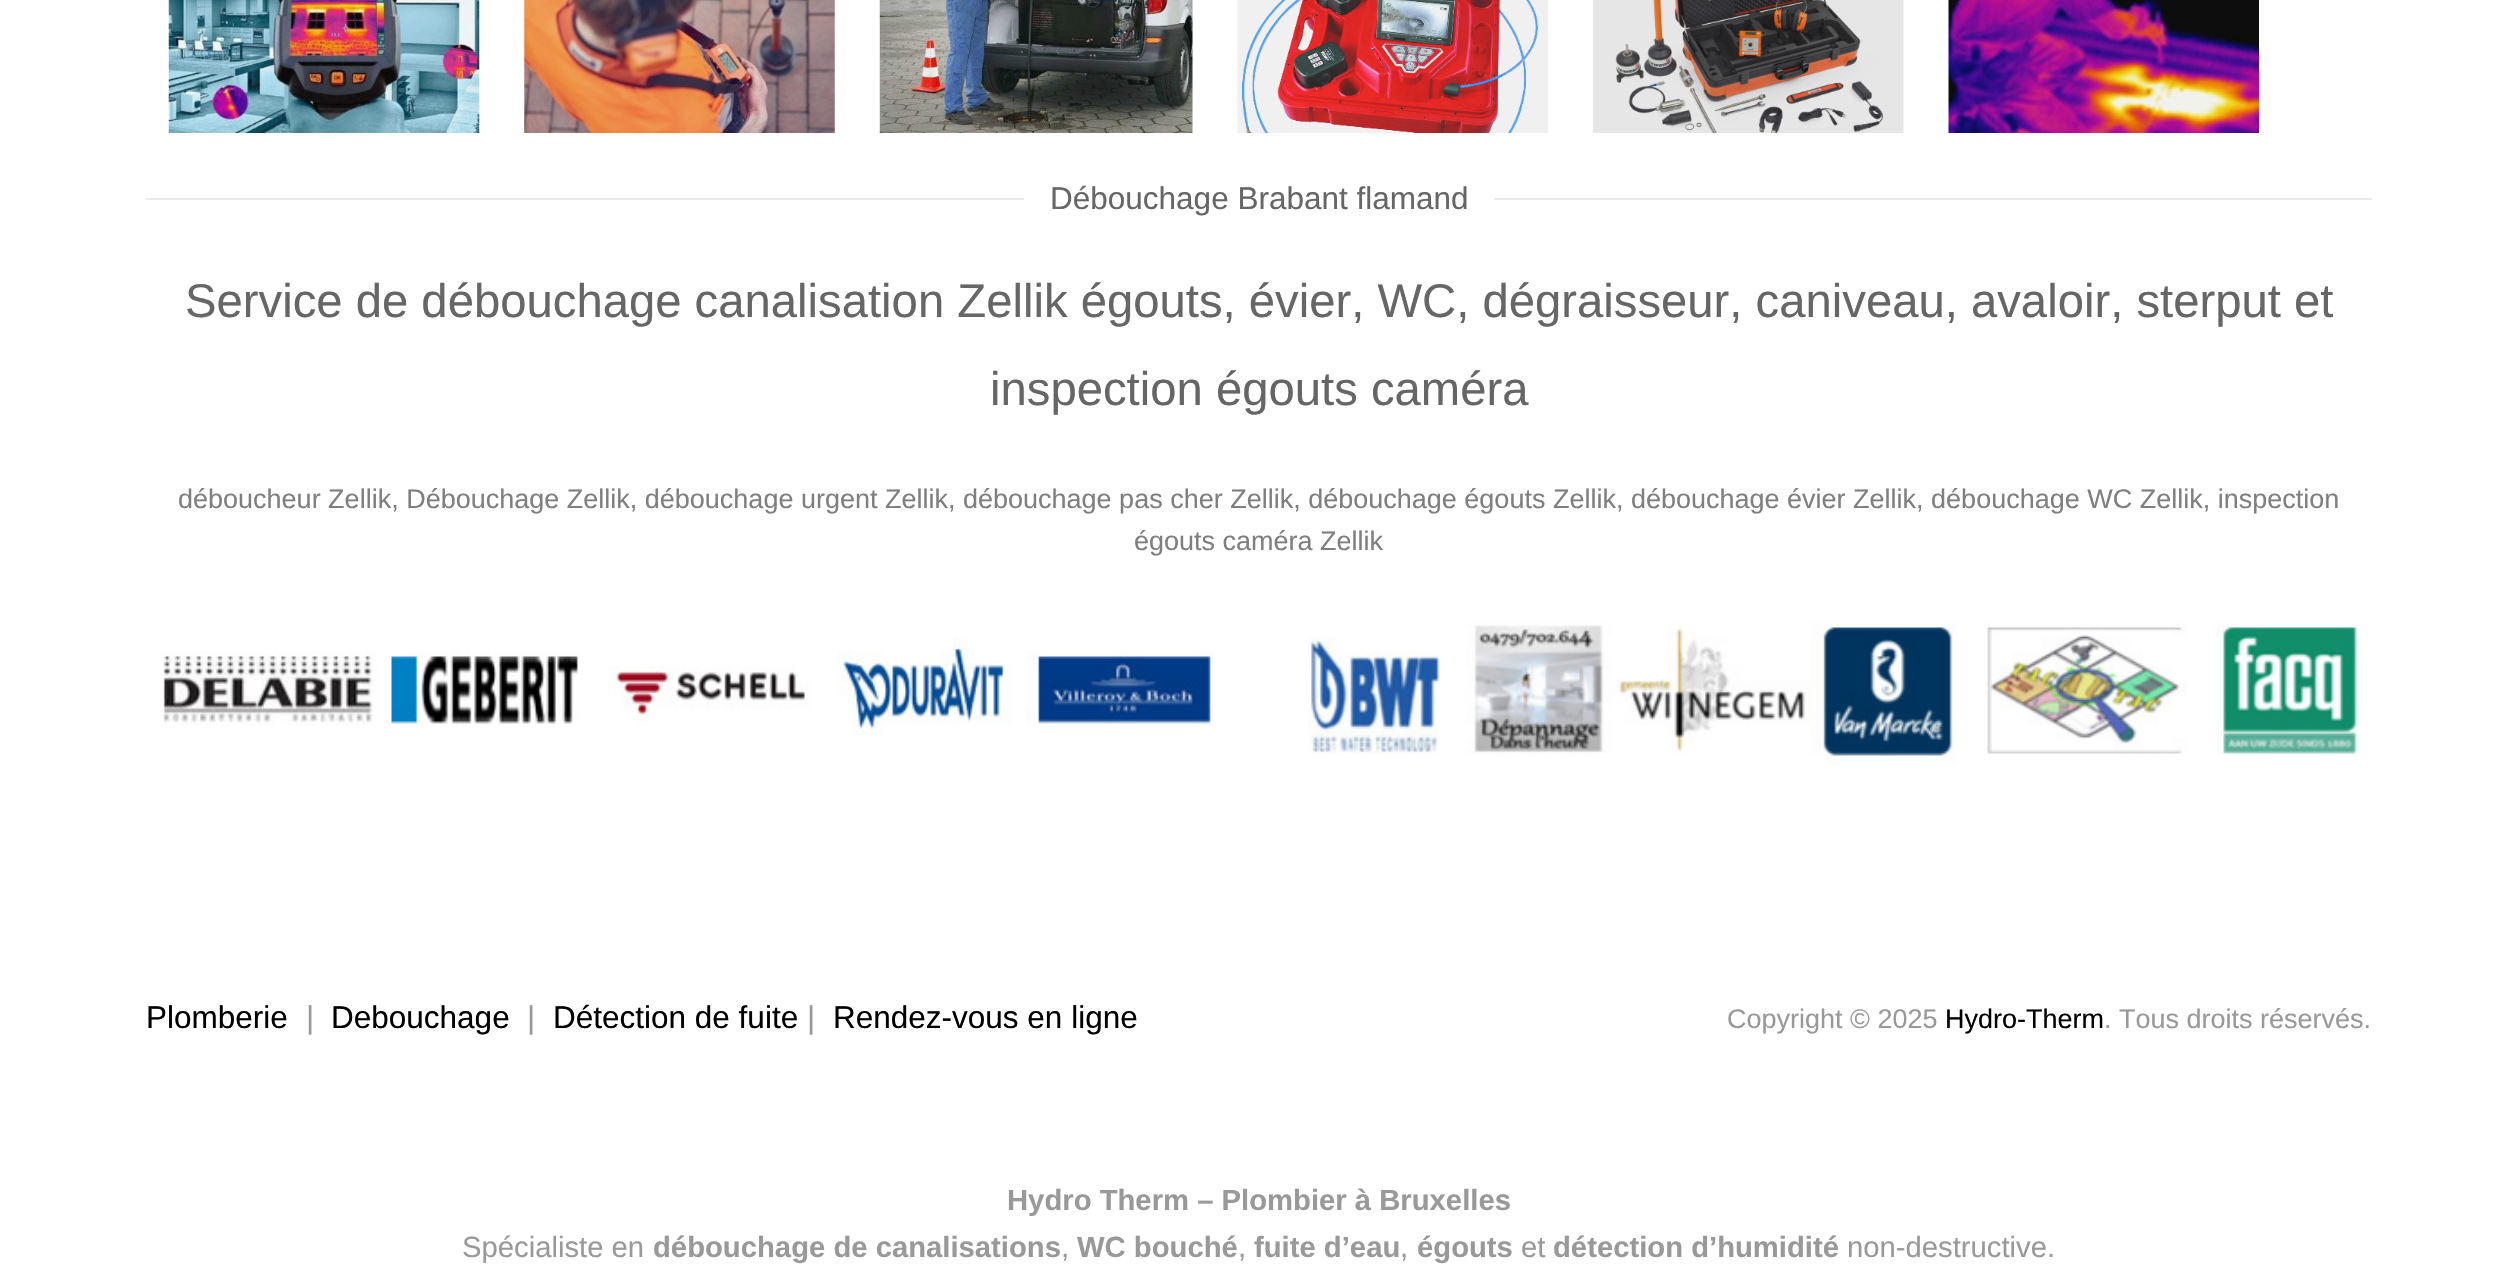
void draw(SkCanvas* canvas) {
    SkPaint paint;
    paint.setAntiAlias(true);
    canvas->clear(0xFFFFFFFF);
    canvas->drawImageRect(SkImages::DeferredFromEncodedData(SkData::MakeFromFileName("img1.png")), SkRect::MakeXYWH(168, 0, 312, 133), SkSamplingOptions());
    canvas->drawImageRect(SkImages::DeferredFromEncodedData(SkData::MakeFromFileName("img2.png")), SkRect::MakeXYWH(524, 0, 311, 133), SkSamplingOptions());
    canvas->drawImageRect(SkImages::DeferredFromEncodedData(SkData::MakeFromFileName("img3.png")), SkRect::MakeXYWH(879, 0, 314, 133), SkSamplingOptions());
    canvas->drawImageRect(SkImages::DeferredFromEncodedData(SkData::MakeFromFileName("img4.png")), SkRect::MakeXYWH(1237, 0, 311, 133), SkSamplingOptions());
    canvas->drawImageRect(SkImages::DeferredFromEncodedData(SkData::MakeFromFileName("img5.png")), SkRect::MakeXYWH(1593, 0, 311, 133), SkSamplingOptions());
    canvas->drawImageRect(SkImages::DeferredFromEncodedData(SkData::MakeFromFileName("img6.png")), SkRect::MakeXYWH(1948, 0, 311, 133), SkSamplingOptions());
    paint.setColor(0xFFEBEBEB);
    canvas->drawRect(SkRect::MakeXYWH(146, 198, 878, 2), paint);
    SkFont font1(fontMgr->matchFamilyStyle("Liberation Sans", SkFontStyle::Normal()), 31.5f);
    font1.setSubpixel(true);
    paint.setColor(0xFF666666);
    canvas->drawString("Débouchage Brabant flamand", 1050, 209, font1, paint);
    paint.setColor(0xFFEBEBEB);
    canvas->drawRect(SkRect::MakeXYWH(1494, 198, 878, 2), paint);
    SkFont font2(fontMgr->matchFamilyStyle("Liberation Sans", SkFontStyle::Normal()), 47.25f);
    font2.setSubpixel(true);
    paint.setColor(0xFF666666);
    canvas->drawString("Service de débouchage canalisation Zellik égouts, évier, WC, dégraisseur, caniveau, avaloir, sterput et", 185, 317, font2, paint);
    canvas->drawString("inspection égouts caméra", 990, 405, font2, paint);
    SkFont font3(fontMgr->matchFamilyStyle("Liberation Sans", SkFontStyle::Normal()), 27);
    font3.setSubpixel(true);
    paint.setColor(0xFF7F7F7F);
    canvas->drawString("déboucheur Zellik, Débouchage Zellik, débouchage urgent Zellik, débouchage pas cher Zellik, débouchage égouts Zellik, débouchage évier Zellik, débouchage WC Zellik, inspection", 178, 508, font3, paint);
    canvas->drawString("égouts caméra Zellik", 1134, 550, font3, paint);
    canvas->drawImageRect(SkImages::DeferredFromEncodedData(SkData::MakeFromFileName("img7.png")), SkRect::MakeXYWH(161, 637, 1053, 98), SkSamplingOptions());
    canvas->drawImageRect(SkImages::DeferredFromEncodedData(SkData::MakeFromFileName("img8.png")), SkRect::MakeXYWH(1308, 622, 1051, 144), SkSamplingOptions());
    paint.setColor(0xFF000000);
    canvas->drawString("Plomberie", 146, 1028, font1, paint);
    paint.setColor(0xFF999999);
    canvas->drawString("|", 306, 1028, font1, paint);
    paint.setColor(0xFF000000);
    canvas->drawString("Debouchage", 331, 1028, font1, paint);
    paint.setColor(0xFF999999);
    canvas->drawString("|", 527, 1028, font1, paint);
    paint.setColor(0xFF000000);
    canvas->drawString("Détection de fuite", 553, 1028, font1, paint);
    paint.setColor(0xFF999999);
    canvas->drawString("|", 807, 1028, font1, paint);
    paint.setColor(0xFF000000);
    canvas->drawString("Rendez-vous en ligne", 833, 1028, font1, paint);
    paint.setColor(0xFF999999);
    canvas->drawString("Copyright © 2025", 1727, 1028, font3, paint);
    paint.setColor(0xFF000000);
    canvas->drawString("Hydro-Therm", 1945, 1028, font3, paint);
    paint.setColor(0xFF999999);
    canvas->drawString(". Tous droits réservés.", 2104, 1028, font3, paint);
    SkFont font4(fontMgr->matchFamilyStyle("Liberation Sans", SkFontStyle::Bold()), 29.25f);
    font4.setSubpixel(true);
    canvas->drawString("Hydro Therm – Plombier à Bruxelles", 1007, 1210, font4, paint);
    SkFont font5(fontMgr->matchFamilyStyle("Liberation Sans", SkFontStyle::Normal()), 29.25f);
    font5.setSubpixel(true);
    canvas->drawString("Spécialiste en", 462, 1257, font5, paint);
    canvas->drawString("débouchage de canalisations", 653, 1257, font4, paint);
    canvas->drawString(",", 1061, 1257, font5, paint);
    canvas->drawString("WC bouché", 1077, 1257, font4, paint);
    canvas->drawString(",", 1238, 1257, font5, paint);
    canvas->drawString("fuite d’eau", 1254, 1257, font4, paint);
    canvas->drawString(",", 1400, 1257, font5, paint);
    canvas->drawString("égouts", 1417, 1257, font4, paint);
    canvas->drawString("et", 1521, 1257, font5, paint);
    canvas->drawString("détection d’humidité", 1553, 1257, font4, paint);
    canvas->drawString("non-destructive.", 1847, 1257, font5, paint);
}
